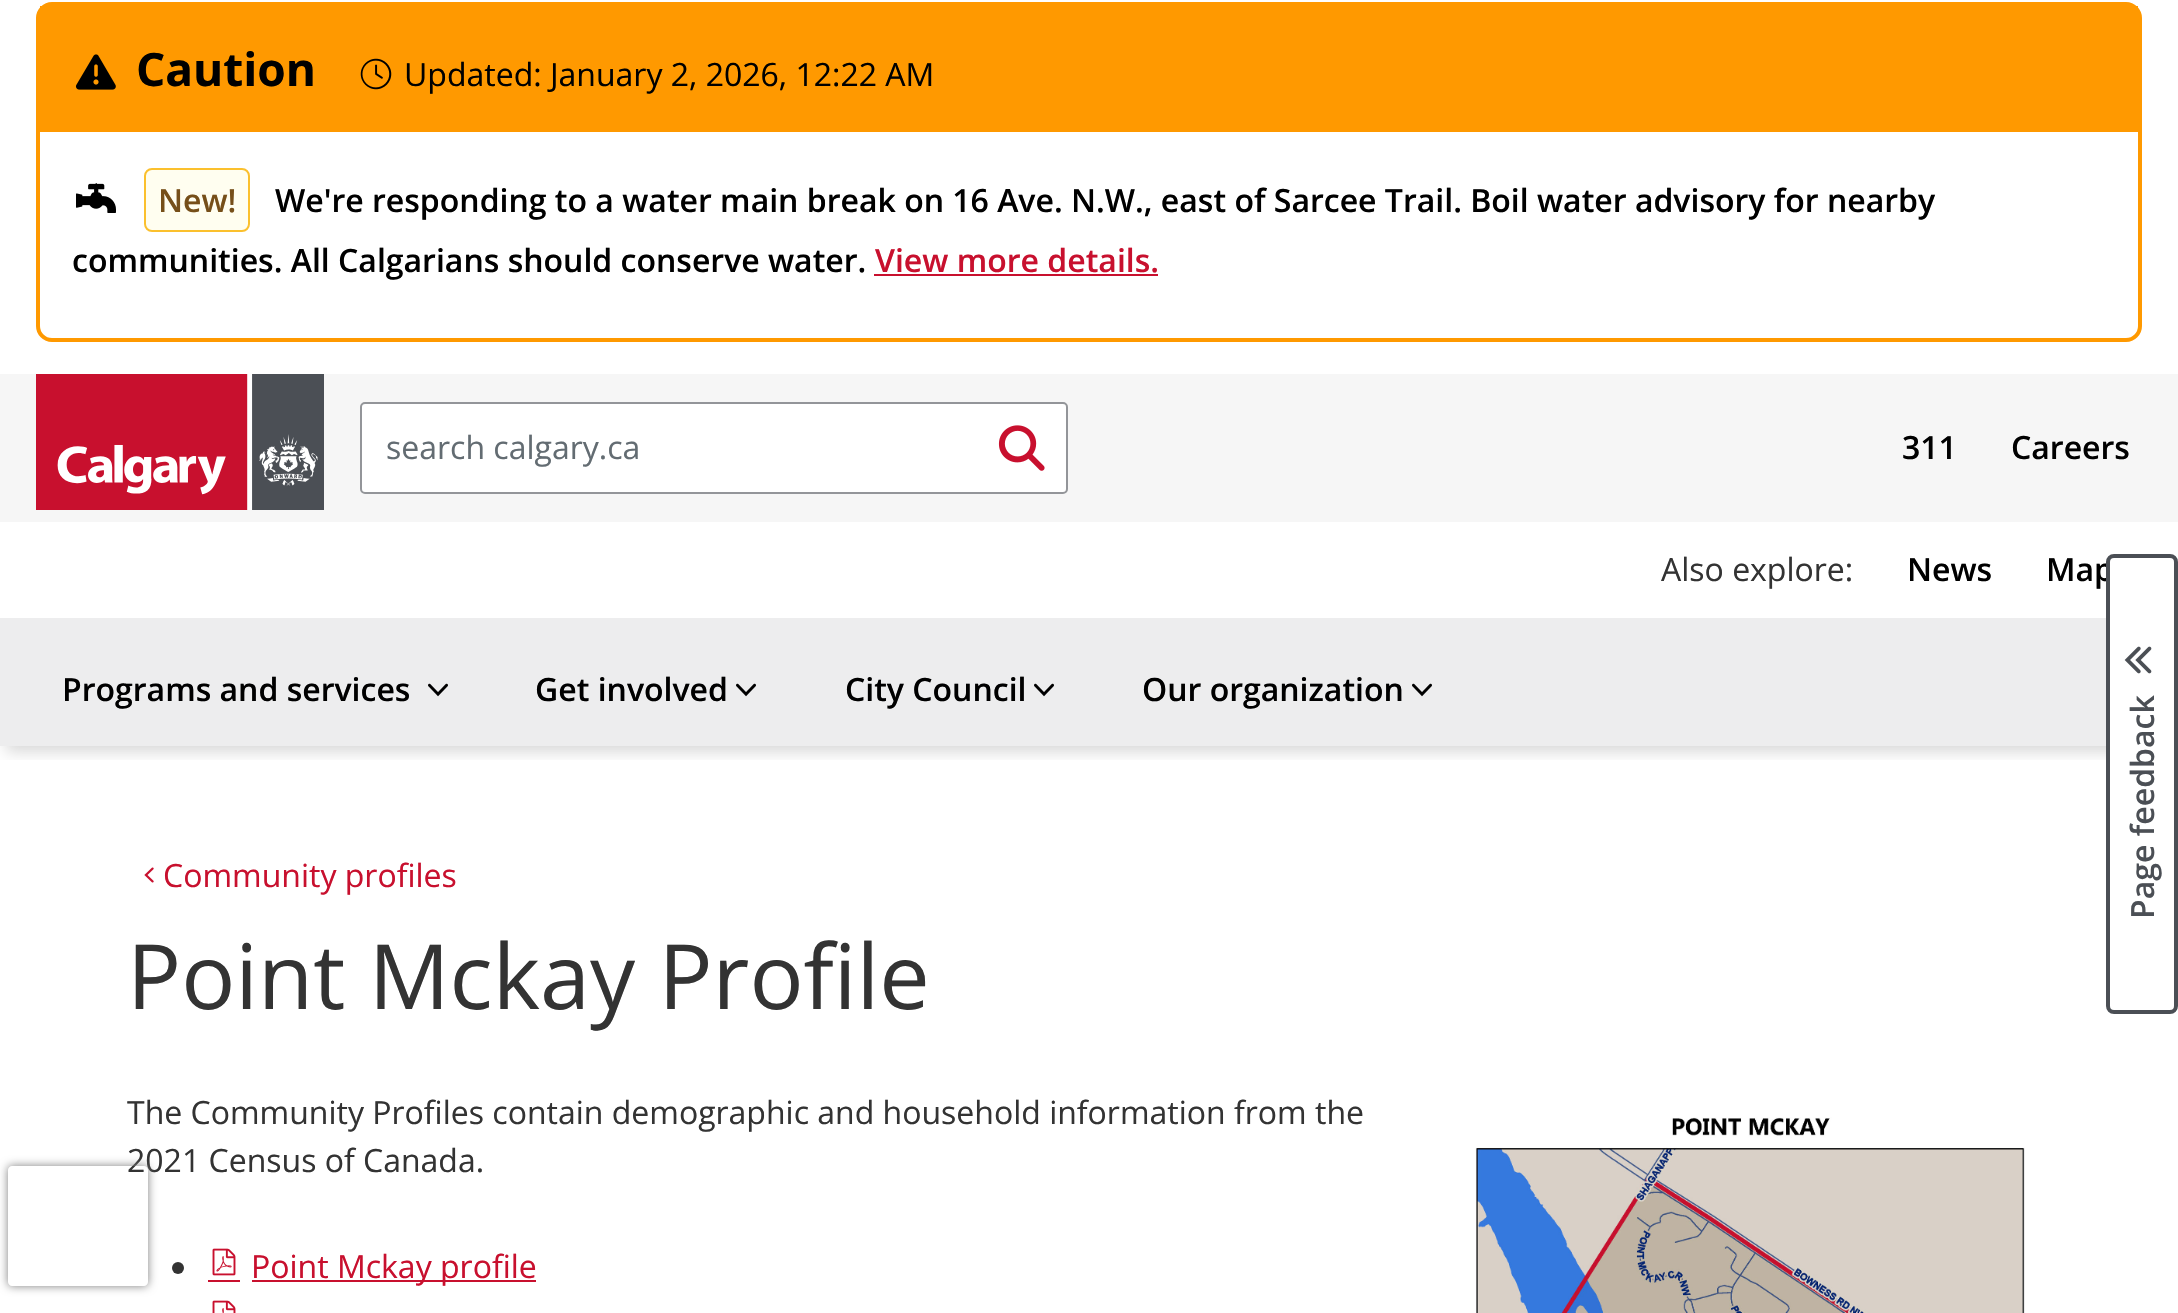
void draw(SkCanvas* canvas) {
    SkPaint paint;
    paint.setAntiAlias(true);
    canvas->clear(0xFFFFFFFF);
    canvas->save();
    canvas->clipRect(SkRect::MakeXYWH(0, 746, 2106, 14));
    paint.setColor(0x26000000);
    paint.setMaskFilter(SkMaskFilter::MakeBlur(kNormal_SkBlurStyle, 7));
    canvas->drawRect(SkRect::MakeXYWH(6, 380, 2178, 372), paint);
    paint.setMaskFilter(nullptr);
    canvas->restore();
    paint.setColor(0xFFFFFFFF);
    canvas->drawRect(SkRect::MakeXYWH(4, 370, 2174, 4), paint);
    paint.setStyle(SkPaint::kStroke_Style);
    paint.setStrokeWidth(4);
    paint.setColor(0xFFFF9900);
    canvas->drawRoundRect(SkRect::MakeXYWH(38, 4, 2102, 336), 14, 14, paint);
    paint.setStyle(SkPaint::kFill_Style);
    canvas->drawRect(SkRect::MakeXYWH(40, 6, 2098, 126), paint);
    canvas->drawImageRect(SkImages::DeferredFromEncodedData(SkData::MakeFromFileName("img1.png")), SkRect::MakeXYWH(75, 54, 41, 36), SkSamplingOptions());
    SkFont font1(fontMgr->matchFamilyStyle("Open Sans", SkFontStyle::Bold()), 46);
    font1.setSubpixel(true);
    paint.setColor(0xFF000000);
    canvas->drawString("Caution", 136, 86, font1, paint);
    canvas->drawImageRect(SkImages::DeferredFromEncodedData(SkData::MakeFromFileName("img2.png")), SkRect::MakeXYWH(360, 58, 32, 32), SkSamplingOptions());
    SkFont font2(fontMgr->matchFamilyStyle("Open Sans", SkFontStyle::Normal()), 32);
    font2.setSubpixel(true);
    canvas->drawString("Updated: January 2, 2026, 12:22 AM", 404, 86, font2, paint);
    canvas->drawImageRect(SkImages::DeferredFromEncodedData(SkData::MakeFromFileName("img3.png")), SkRect::MakeXYWH(76, 183, 40, 30), SkSamplingOptions());
    paint.setColor(0xFFFFFEF0);
    canvas->drawRoundRect(SkRect::MakeXYWH(145, 169, 104, 62), 7, 7, paint);
    paint.setStyle(SkPaint::kStroke_Style);
    paint.setStrokeWidth(2);
    paint.setColor(0xFFFBC02D);
    canvas->drawRoundRect(SkRect::MakeXYWH(145, 169, 104, 62), 7, 7, paint);
    SkFont font3(fontMgr->matchFamilyStyle("Open Sans", SkFontStyle(600, SkFontStyle::kNormal_Width, SkFontStyle::kUpright_Slant)), 32);
    font3.setSubpixel(true);
    paint.setStyle(SkPaint::kFill_Style);
    paint.setColor(0xFF764F19);
    canvas->drawString("New!", 158, 212, font3, paint);
    paint.setColor(0xFF000000);
    canvas->drawString("We're responding to a water main break on 16 Ave. N.W., east of Sarcee Trail. Boil water advisory for nearby", 275, 212, font3, paint);
    canvas->drawString("communities. All Calgarians should conserve water.", 72, 272, font3, paint);
    paint.setColor(0xFFC8102E);
    canvas->drawString("View more details.", 875, 272, font3, paint);
    canvas->drawRect(SkRect::MakeXYWH(874, 274, 284, 2), paint);
    paint.setColor(0xFFF6F6F6);
    canvas->drawRect(SkRect::MakeXYWH(0, 374, 2178, 148), paint);
    canvas->drawImageRect(SkImages::DeferredFromEncodedData(SkData::MakeFromFileName("img4.png")), SkRect::MakeXYWH(36, 374, 288, 136), SkSamplingOptions());
    paint.setColor(0xFFFFFFFF);
    canvas->drawRoundRect(SkRect::MakeXYWH(361, 403, 706, 90), 4, 4, paint);
    paint.setStyle(SkPaint::kStroke_Style);
    paint.setColor(0xFF939599);
    canvas->drawRoundRect(SkRect::MakeXYWH(361, 403, 706, 90), 4, 4, paint);
    paint.setStyle(SkPaint::kFill_Style);
    paint.setColor(0xFF636C72);
    canvas->drawString("search calgary.ca", 386, 459, font2, paint);
    canvas->drawImageRect(SkImages::DeferredFromEncodedData(SkData::MakeFromFileName("img5.png")), SkRect::MakeXYWH(998, 425, 47, 46), SkSamplingOptions());
    paint.setColor(0xFF000000);
    canvas->drawString("311", 1902, 459, font3, paint);
    canvas->drawString("Careers", 2011, 459, font3, paint);
    paint.setColor(0xFF333333);
    canvas->drawString("Also explore:", 1661, 581, font2, paint);
    paint.setColor(0xFF000000);
    canvas->drawString("News", 1907, 581, font3, paint);
    canvas->drawString("Map", 2046, 581, font3, paint);
    paint.setColor(0xFFEDEDEE);
    canvas->drawRect(SkRect::MakeXYWH(0, 618, 2106, 128), paint);
    paint.setColor(0xFF000000);
    canvas->drawString("Programs and services", 62, 701, font3, paint);
    canvas->drawImageRect(SkImages::DeferredFromEncodedData(SkData::MakeFromFileName("img6.png")), SkRect::MakeXYWH(428, 683, 20, 14), SkSamplingOptions());
    canvas->drawString("Get involved", 535, 701, font3, paint);
    canvas->drawImageRect(SkImages::DeferredFromEncodedData(SkData::MakeFromFileName("img6.png")), SkRect::MakeXYWH(736, 683, 20, 14), SkSamplingOptions());
    canvas->drawString("City Council", 845, 701, font3, paint);
    canvas->drawImageRect(SkImages::DeferredFromEncodedData(SkData::MakeFromFileName("img6.png")), SkRect::MakeXYWH(1034, 683, 20, 14), SkSamplingOptions());
    canvas->drawString("Our organization", 1142, 701, font3, paint);
    canvas->drawImageRect(SkImages::DeferredFromEncodedData(SkData::MakeFromFileName("img6.png")), SkRect::MakeXYWH(1412, 683, 20, 14), SkSamplingOptions());
    canvas->drawImageRect(SkImages::DeferredFromEncodedData(SkData::MakeFromFileName("img7.png")), SkRect::MakeXYWH(144, 867, 10, 16), SkSamplingOptions());
    paint.setColor(0xFFC8102E);
    canvas->drawString("Community profiles", 163, 887, font2, paint);
    paint.setColor(0xFFFFFFFF);
    canvas->drawPath(SkPathBuilder().moveTo(2106, 1006).lineTo(2106, 562).cubicTo(2106, 558, 2110, 554, 2114, 554).lineTo(2170, 554).cubicTo(2174, 554, 2178, 558, 2178, 562).lineTo(2178, 1006).cubicTo(2178, 1010, 2174, 1014, 2170, 1014).lineTo(2114, 1014).cubicTo(2110, 1014, 2106, 1010, 2106, 1006).close().detach(), paint);
    paint.setStyle(SkPaint::kStroke_Style);
    paint.setStrokeWidth(4);
    paint.setColor(0xFF4B4F55);
    canvas->drawPath(SkPathBuilder().moveTo(2108, 1006).lineTo(2108, 562).cubicTo(2108, 558.5f, 2110.5f, 556, 2114, 556).lineTo(2170, 556).cubicTo(2173.5f, 556, 2176, 558.5f, 2176, 562).lineTo(2176, 1006).cubicTo(2176, 1009.5f, 2173.5f, 1012, 2170, 1012).lineTo(2114, 1012).cubicTo(2110.5f, 1012, 2108, 1009.5f, 2108, 1006).close().detach(), paint);
    canvas->drawImageRect(SkImages::DeferredFromEncodedData(SkData::MakeFromFileName("img8.png")), SkRect::MakeXYWH(2124, 646, 28, 28), SkSamplingOptions());
    paint.setStyle(SkPaint::kFill_Style);
    canvas->save();
    canvas->rotate(-90, 2154, 919);
    canvas->drawString("Page feedback", 2154, 919, font3, paint);
    canvas->restore();
    SkFont font4(fontMgr->matchFamilyStyle("Open Sans", SkFontStyle::Normal()), 90);
    font4.setSubpixel(true);
    paint.setColor(0xFF333333);
    canvas->drawString("Point Mckay Profile", 127, 1009, font4, paint);
    canvas->drawString("The Community Profiles contain demographic and household information from the", 127, 1124, font2, paint);
    canvas->drawString("2021 Census of Canada.", 127, 1172, font2, paint);
    canvas->drawCircle(178, 1268, 6, paint);
    canvas->drawImageRect(SkImages::DeferredFromEncodedData(SkData::MakeFromFileName("img9.png")), SkRect::MakeXYWH(212, 1248, 24, 28), SkSamplingOptions());
    paint.setColor(0xFFC8102E);
    canvas->drawRect(SkRect::MakeXYWH(252, 1280, 284, 2), paint);
    canvas->drawString("Point Mckay profile", 251, 1278, font2, paint);
    canvas->drawRect(SkRect::MakeXYWH(208, 1280, 32, 2), paint);
    canvas->drawImageRect(SkImages::DeferredFromEncodedData(SkData::MakeFromFileName("img10.png")), SkRect::MakeXYWH(212, 1300, 24, 13), SkSamplingOptions());
    canvas->drawImageRect(SkImages::DeferredFromEncodedData(SkData::MakeFromFileName("img11.png")), SkRect::MakeXYWH(1475, 1117, 550, 196), SkSamplingOptions());
    canvas->save();
    canvas->clipPath(SkPathBuilder(SkPathFillType::kEvenOdd).moveTo(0, 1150).lineTo(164, 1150).lineTo(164, 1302).lineTo(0, 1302).close().moveTo(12, 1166).lineTo(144, 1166).cubicTo(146, 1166, 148, 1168, 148, 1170).lineTo(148, 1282).cubicTo(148, 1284, 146, 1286, 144, 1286).lineTo(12, 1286).cubicTo(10, 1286, 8, 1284, 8, 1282).lineTo(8, 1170).cubicTo(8, 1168, 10, 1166, 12, 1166).close().detach(), true);
    paint.setColor(0xFF808080);
    paint.setMaskFilter(SkMaskFilter::MakeBlur(kNormal_SkBlurStyle, 5));
    canvas->drawRoundRect(SkRect::MakeXYWH(8, 1166, 140, 120), 4, 4, paint);
    paint.setMaskFilter(nullptr);
    canvas->restore();
}
